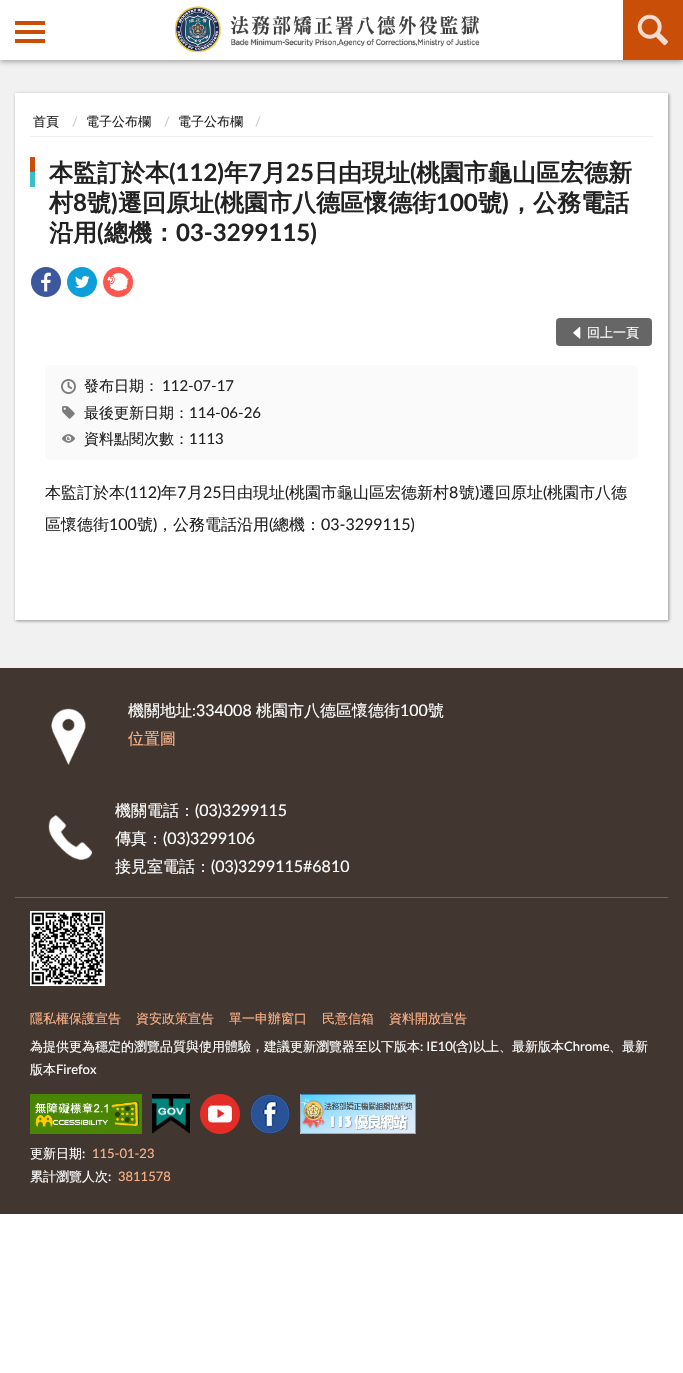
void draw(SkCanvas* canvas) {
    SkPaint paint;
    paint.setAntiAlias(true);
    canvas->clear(0xFFFFFFFF);
    paint.setColor(0xFFF1F1F1);
    canvas->drawRect(SkRect::MakeXYWH(0, 60, 683, 608), paint);
    paint.setColor(0x4D000000);
    paint.setMaskFilter(SkMaskFilter::MakeBlur(kNormal_SkBlurStyle, 2.5f));
    canvas->drawRect(SkRect::MakeXYWH(0, 2, 683, 60), paint);
    paint.setMaskFilter(nullptr);
    paint.setColor(0xFFFFFFFF);
    canvas->drawRect(SkRect::MakeXYWH(0, 0, 623, 60), paint);
    paint.setColor(0xFFC94E08);
    canvas->drawRect(SkRect::MakeXYWH(15, 21, 30, 4), paint);
    canvas->drawRect(SkRect::MakeXYWH(15, 30, 30, 4), paint);
    canvas->drawRect(SkRect::MakeXYWH(15, 39, 30, 4), paint);
    canvas->drawImageRect(SkImages::DeferredFromEncodedData(SkData::MakeFromFileName("img1.png")), SkRect::MakeXYWH(174, 6, 306, 47), SkSamplingOptions());
    canvas->drawRect(SkRect::MakeXYWH(623, 0, 60, 60), paint);
    canvas->drawImageRect(SkImages::DeferredFromEncodedData(SkData::MakeFromFileName("img2.png")), SkRect::MakeXYWH(637, 14, 31, 32), SkSamplingOptions());
    paint.setColor(0x66000000);
    paint.setMaskFilter(SkMaskFilter::MakeBlur(kNormal_SkBlurStyle, 1.5f));
    canvas->drawRect(SkRect::MakeXYWH(16, 94, 653, 527), paint);
    paint.setMaskFilter(nullptr);
    paint.setColor(0xFFFFFFFF);
    canvas->drawRect(SkRect::MakeXYWH(15, 93, 653, 527), paint);
    paint.setColor(0xFFEEEEEE);
    canvas->drawRect(SkRect::MakeXYWH(30, 136, 623, 1), paint);
    SkFont font1(fontMgr->matchFamilyStyle("WenQuanYi Zen Hei", SkFontStyle(500, SkFontStyle::kNormal_Width, SkFontStyle::kUpright_Slant)), 13);
    font1.setSubpixel(true);
    paint.setColor(0xFF222222);
    canvas->drawString("首頁", 33, 126, font1, paint);
    SkFont font2(fontMgr->matchFamilyStyle("Lato", SkFontStyle::Normal()), 13);
    font2.setSubpixel(true);
    paint.setColor(0xFFCCCCCC);
    canvas->drawString("/", 72, 126, font2, paint);
    paint.setColor(0xFF222222);
    canvas->drawString("電子公布欄", 86, 126, font1, paint);
    paint.setColor(0xFFCCCCCC);
    canvas->drawString("/", 164, 126, font2, paint);
    paint.setColor(0xFF222222);
    canvas->drawString("電子公布欄", 178, 126, font1, paint);
    paint.setColor(0xFFCCCCCC);
    canvas->drawString("/", 255, 126, font2, paint);
    paint.setColor(0xFFC94E08);
    canvas->drawRect(SkRect::MakeXYWH(30, 157, 5, 15), paint);
    SkFont font3(fontMgr->matchFamilyStyle("WenQuanYi Zen Hei", SkFontStyle::Bold()), 24);
    font3.setSubpixel(true);
    paint.setColor(0xFF222222);
    canvas->drawString("本監訂於本", 49, 181, font3, paint);
    SkFont font4(fontMgr->matchFamilyStyle("Lato", SkFontStyle::Bold()), 24);
    font4.setSubpixel(true);
    canvas->drawString("(112)", 169, 181, font4, paint);
    canvas->drawString("年", 224, 181, font3, paint);
    canvas->drawString("7", 248, 181, font4, paint);
    canvas->drawString("月", 262, 181, font3, paint);
    canvas->drawString("25", 286, 181, font4, paint);
    canvas->drawString("日由現址", 314, 181, font3, paint);
    canvas->drawString("(", 410, 181, font4, paint);
    canvas->drawString("桃園市龜山區宏德新", 416, 181, font3, paint);
    paint.setColor(0xFF3BBDCA);
    canvas->drawRect(SkRect::MakeXYWH(30, 172, 5, 15), paint);
    paint.setColor(0xFF222222);
    canvas->drawString("村", 49, 211, font3, paint);
    canvas->drawString("8", 73, 211, font4, paint);
    canvas->drawString("號", 87, 211, font3, paint);
    canvas->drawString(")", 111, 211, font4, paint);
    canvas->drawString("遷回原址", 118, 211, font3, paint);
    canvas->drawString("(", 214, 211, font4, paint);
    canvas->drawString("桃園市八德區懷德街", 220, 211, font3, paint);
    canvas->drawString("100", 436, 211, font4, paint);
    canvas->drawString("號", 478, 211, font3, paint);
    canvas->drawString(")", 502, 211, font4, paint);
    canvas->drawString("，公務電話", 509, 211, font3, paint);
    canvas->drawString("沿用", 49, 241, font3, paint);
    canvas->drawString("(", 97, 241, font4, paint);
    canvas->drawString("總機：", 104, 241, font3, paint);
    canvas->drawString("03-3299115)", 176, 241, font4, paint);
    canvas->drawImageRect(SkImages::DeferredFromEncodedData(SkData::MakeFromFileName("img3.png")), SkRect::MakeXYWH(31, 267, 30, 30), SkSamplingOptions());
    canvas->drawImageRect(SkImages::DeferredFromEncodedData(SkData::MakeFromFileName("img4.png")), SkRect::MakeXYWH(67, 267, 30, 30), SkSamplingOptions());
    canvas->drawImageRect(SkImages::DeferredFromEncodedData(SkData::MakeFromFileName("img5.png")), SkRect::MakeXYWH(103, 267, 30, 30), SkSamplingOptions());
    paint.setColor(0xFF666666);
    canvas->drawRoundRect(SkRect::MakeXYWH(556, 318, 96, 28), 4, 4, paint);
    canvas->drawImageRect(SkImages::DeferredFromEncodedData(SkData::MakeFromFileName("img6.png")), SkRect::MakeXYWH(573, 327, 8, 12), SkSamplingOptions());
    paint.setColor(0xFFFFFFFF);
    canvas->drawString("回上一頁", 587, 337, font1, paint);
    paint.setColor(0xFFFAFAFA);
    canvas->drawRoundRect(SkRect::MakeXYWH(45, 365, 593, 95), 6, 6, paint);
    canvas->drawImageRect(SkImages::DeferredFromEncodedData(SkData::MakeFromFileName("img7.png")), SkRect::MakeXYWH(61, 379, 15, 15), SkSamplingOptions());
    SkFont font5(fontMgr->matchFamilyStyle("WenQuanYi Zen Hei", SkFontStyle(500, SkFontStyle::kNormal_Width, SkFontStyle::kUpright_Slant)), 15);
    font5.setSubpixel(true);
    paint.setColor(0xFF222222);
    canvas->drawString("發布日期：", 84, 391, font5, paint);
    SkFont font6(fontMgr->matchFamilyStyle("Lato", SkFontStyle::Normal()), 15);
    font6.setSubpixel(true);
    canvas->drawString("112-07-17", 162, 391, font6, paint);
    canvas->drawImageRect(SkImages::DeferredFromEncodedData(SkData::MakeFromFileName("img8.png")), SkRect::MakeXYWH(62, 406, 13, 13), SkSamplingOptions());
    canvas->drawString("最後更新日期：", 84, 418, font5, paint);
    canvas->drawString("114-06-26", 189, 418, font6, paint);
    canvas->drawImageRect(SkImages::DeferredFromEncodedData(SkData::MakeFromFileName("img9.png")), SkRect::MakeXYWH(62, 434, 13, 9), SkSamplingOptions());
    canvas->drawString("資料點閱次數：", 84, 444, font5, paint);
    canvas->drawString("1113", 189, 444, font6, paint);
    SkFont font7(fontMgr->matchFamilyStyle("WenQuanYi Zen Hei", SkFontStyle(500, SkFontStyle::kNormal_Width, SkFontStyle::kUpright_Slant)), 16);
    font7.setSubpixel(true);
    canvas->drawString("本監訂於本", 45, 498, font7, paint);
    SkFont font8(fontMgr->matchFamilyStyle("Lato", SkFontStyle::Normal()), 16);
    font8.setSubpixel(true);
    canvas->drawString("(112)", 125, 498, font8, paint);
    canvas->drawString("年", 161, 498, font7, paint);
    canvas->drawString("7", 177, 498, font8, paint);
    canvas->drawString("月", 187, 498, font7, paint);
    canvas->drawString("25", 203, 498, font8, paint);
    canvas->drawString("日由現址", 221, 498, font7, paint);
    canvas->drawString("(", 285, 498, font8, paint);
    canvas->drawString("桃園市龜山區宏德新村", 289, 498, font7, paint);
    canvas->drawString("8", 449, 498, font8, paint);
    canvas->drawString("號", 459, 498, font7, paint);
    canvas->drawString(")", 475, 498, font8, paint);
    canvas->drawString("遷回原址", 479, 498, font7, paint);
    canvas->drawString("(", 543, 498, font8, paint);
    canvas->drawString("桃園市八德", 547, 498, font7, paint);
    canvas->drawString("區懷德街", 45, 530, font7, paint);
    canvas->drawString("100", 109, 530, font8, paint);
    canvas->drawString("號", 137, 530, font7, paint);
    canvas->drawString(")", 153, 530, font8, paint);
    canvas->drawString("，公務電話沿用", 157, 530, font7, paint);
    canvas->drawString("(", 269, 530, font8, paint);
    canvas->drawString("總機：", 273, 530, font7, paint);
    canvas->drawString("03-3299115)", 321, 530, font8, paint);
    paint.setColor(0xFF413630);
    canvas->drawRect(SkRect::MakeXYWH(0, 668, 683, 546), paint);
    canvas->drawImageRect(SkImages::DeferredFromEncodedData(SkData::MakeFromFileName("img10.png")), SkRect::MakeXYWH(51, 708, 35, 57), SkSamplingOptions());
    paint.setColor(0xFFFFFFFF);
    canvas->drawString("機關地址", 128, 716, font7, paint);
    canvas->drawString(":334008", 192, 716, font8, paint);
    canvas->drawString("桃園市八德區懷德街", 256, 716, font7, paint);
    canvas->drawString("100", 400, 716, font8, paint);
    canvas->drawString("號", 428, 716, font7, paint);
    paint.setColor(0xFFFAB289);
    canvas->drawString("位置圖", 128, 744, font7, paint);
    canvas->drawImageRect(SkImages::DeferredFromEncodedData(SkData::MakeFromFileName("img11.png")), SkRect::MakeXYWH(48, 815, 44, 45), SkSamplingOptions());
    paint.setColor(0xFFFFFFFF);
    canvas->drawString("機關電話：", 115, 816, font7, paint);
    canvas->drawString("(03)3299115", 195, 816, font8, paint);
    canvas->drawString("傳真：", 115, 844, font7, paint);
    canvas->drawString("(03)3299106", 163, 844, font8, paint);
    canvas->drawString("接見室電話：", 115, 872, font7, paint);
    canvas->drawString("(03)3299115#6810", 211, 872, font8, paint);
    paint.setColor(0xFF666666);
    canvas->drawRect(SkRect::MakeXYWH(15, 897, 653, 1), paint);
    canvas->drawImageRect(SkImages::DeferredFromEncodedData(SkData::MakeFromFileName("img12.png")), SkRect::MakeXYWH(30, 911, 75, 75), SkSamplingOptions());
    paint.setColor(0xFFFAB289);
    canvas->drawString("隱私權保護宣告", 30, 1023, font1, paint);
    canvas->drawString("資安政策宣告", 136, 1023, font1, paint);
    canvas->drawString("單一申辦窗口", 229, 1023, font1, paint);
    canvas->drawString("民意信箱", 322, 1023, font1, paint);
    canvas->drawString("資料開放宣告", 389, 1023, font1, paint);
    paint.setColor(0xFFFFFFFF);
    canvas->drawString("為提供更為穩定的瀏覽品質與使用體驗，建議更新瀏覽器至以下版本", 30, 1051, font1, paint);
    canvas->drawString(": IE10(", 420, 1051, font2, paint);
    canvas->drawString("含", 456, 1051, font1, paint);
    canvas->drawString(")", 469, 1051, font2, paint);
    canvas->drawString("以上、最新版本", 473, 1051, font1, paint);
    canvas->drawString("Chrome", 564, 1051, font2, paint);
    canvas->drawString("、最新", 609, 1051, font1, paint);
    canvas->drawString("版本", 30, 1074, font1, paint);
    canvas->drawString("Firefox", 56, 1074, font2, paint);
    canvas->drawImageRect(SkImages::DeferredFromEncodedData(SkData::MakeFromFileName("img13.png")), SkRect::MakeXYWH(30, 1094, 112, 40), SkSamplingOptions());
    canvas->drawImageRect(SkImages::DeferredFromEncodedData(SkData::MakeFromFileName("img14.png")), SkRect::MakeXYWH(152, 1094, 38, 40), SkSamplingOptions());
    canvas->drawImageRect(SkImages::DeferredFromEncodedData(SkData::MakeFromFileName("img15.png")), SkRect::MakeXYWH(200, 1094, 40, 40), SkSamplingOptions());
    canvas->drawImageRect(SkImages::DeferredFromEncodedData(SkData::MakeFromFileName("img16.png")), SkRect::MakeXYWH(250, 1094, 40, 40), SkSamplingOptions());
    canvas->drawImageRect(SkImages::DeferredFromEncodedData(SkData::MakeFromFileName("img17.png")), SkRect::MakeXYWH(300, 1094, 116, 40), SkSamplingOptions());
    canvas->drawString("更新日期", 30, 1158, font1, paint);
    canvas->drawString(":", 82, 1158, font2, paint);
    paint.setColor(0xFFFAB289);
    canvas->drawString("115-01-23", 92, 1158, font2, paint);
    paint.setColor(0xFFFFFFFF);
    canvas->drawString("累計瀏覽人次", 30, 1181, font1, paint);
    canvas->drawString(":", 108, 1181, font2, paint);
    paint.setColor(0xFFFAB289);
    canvas->drawString("3811578", 118, 1181, font2, paint);
}
